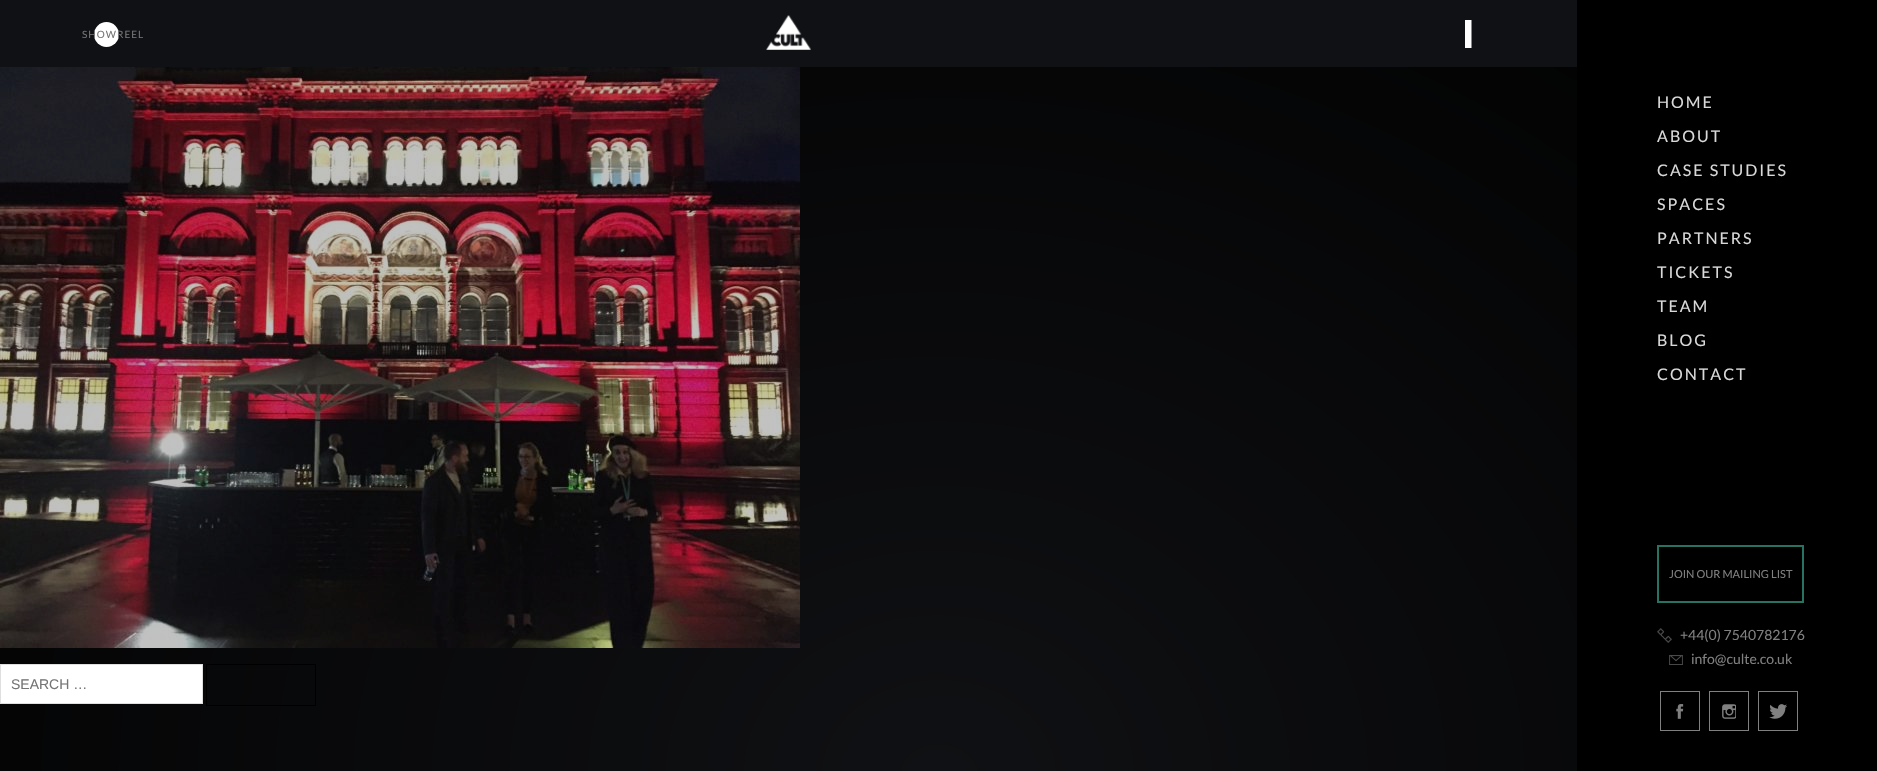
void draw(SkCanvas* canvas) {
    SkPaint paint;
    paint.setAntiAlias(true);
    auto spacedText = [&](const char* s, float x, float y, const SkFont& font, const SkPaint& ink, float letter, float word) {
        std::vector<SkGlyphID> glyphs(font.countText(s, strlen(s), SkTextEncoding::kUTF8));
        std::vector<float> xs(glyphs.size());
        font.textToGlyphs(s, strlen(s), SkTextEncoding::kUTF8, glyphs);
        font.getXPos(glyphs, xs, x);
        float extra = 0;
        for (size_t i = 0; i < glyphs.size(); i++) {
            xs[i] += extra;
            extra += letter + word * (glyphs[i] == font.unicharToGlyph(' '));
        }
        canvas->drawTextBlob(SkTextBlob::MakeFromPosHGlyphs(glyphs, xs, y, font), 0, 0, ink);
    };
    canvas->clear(0xFFFFFFFF);
    {
        const SkColor colors[] = {0xFF101114, 0xFF000000};
        const float stops[] = {0, 1};
        SkMatrix m = SkMatrix::Translate(939, 777).preScale(1327, 1099);
        paint.setShader(SkGradientShader::MakeRadial({0, 0}, 1, colors, stops, 2, SkTileMode::kClamp, 0, &m));
        paint.setAlpha(255);
    }
    canvas->drawRect(SkRect::MakeXYWH(0, 67, 1577, 704), paint);
    paint.setShader(nullptr);
    paint.setColor(0xFF101114);
    canvas->drawRect(SkRect::MakeXYWH(0, 0, 1577, 67), paint);
    paint.setColor(0xFFFFFFFF);
    canvas->drawCircle(106.5f, 34.5f, 12.5f, paint);
    SkFont font1(fontMgr->matchFamilyStyle("Lato", SkFontStyle::Normal()), 10);
    font1.setSubpixel(true);
    paint.setColor(0xFF757575);
    spacedText("SHOWREEL", 82, 38, font1, paint, 1, 0);
    canvas->drawImageRect(SkImages::DeferredFromEncodedData(SkData::MakeFromFileName("img1.png")), SkRect::MakeXYWH(766, 15, 45, 35), SkSamplingOptions());
    canvas->save();
    canvas->clipPath(SkPathBuilder().moveTo(1472, 19).lineTo(1472, 49).lineTo(1464.5f, 49).lineTo(1464.5f, 19).close().detach(), true);
    canvas->clipPath(SkPathBuilder().moveTo(1472, 19).lineTo(1472, 49).lineTo(1465, 49).lineTo(1465, 19).close().detach(), true);
    paint.setStyle(SkPaint::kStroke_Style);
    paint.setStrokeWidth(7);
    paint.setStrokeCap(SkPaint::kSquare_Cap);
    paint.setColor(0xFFFFFFFF);
    canvas->drawPath(SkPathBuilder().moveTo(1468, 23.5f).lineTo(1468, 44.5f).detach(), paint);
    canvas->restore();
    canvas->drawImageRect(SkImages::DeferredFromEncodedData(SkData::MakeFromFileName("img2.png")), SkRect::MakeXYWH(0, 67, 800, 581), SkSamplingOptions());
    paint.setStyle(SkPaint::kFill_Style);
    paint.setColor(0xFF000000);
    canvas->drawRect(SkRect::MakeXYWH(1577, 0, 300, 771), paint);
    SkFont font2(fontMgr->matchFamilyStyle("Lato", SkFontStyle::Normal()), 16);
    font2.setSubpixel(true);
    paint.setColor(0xFFD9D9D9);
    spacedText("HOME", 1657, 108, font2, paint, 2, 0);
    spacedText("ABOUT", 1657, 142, font2, paint, 2, 0);
    spacedText("CASE STUDIES", 1657, 176, font2, paint, 2, 0);
    spacedText("SPACES", 1657, 210, font2, paint, 2, 0);
    spacedText("PARTNERS", 1657, 244, font2, paint, 2, 0);
    spacedText("TICKETS", 1657, 278, font2, paint, 2, 0);
    spacedText("TEAM", 1657, 312, font2, paint, 2, 0);
    spacedText("BLOG", 1657, 346, font2, paint, 2, 0);
    spacedText("CONTACT", 1657, 380, font2, paint, 2, 0);
    paint.setStyle(SkPaint::kStroke_Style);
    paint.setStrokeWidth(2);
    paint.setStrokeCap(SkPaint::kButt_Cap);
    paint.setColor(0xFF287261);
    canvas->drawRect(SkRect::MakeXYWH(1658, 546, 145, 56), paint);
    SkFont font3(fontMgr->matchFamilyStyle("Lato", SkFontStyle::Normal()), 11);
    font3.setSubpixel(true);
    paint.setStyle(SkPaint::kFill_Style);
    paint.setColor(0xFF808080);
    canvas->drawString("JOIN OUR MAILING LIST", 1669, 578, font3, paint);
    canvas->drawImageRect(SkImages::DeferredFromEncodedData(SkData::MakeFromFileName("img3.png")), SkRect::MakeXYWH(1657, 628, 15, 15), SkSamplingOptions());
    SkFont font4(fontMgr->matchFamilyStyle("Lato", SkFontStyle::Normal()), 14);
    font4.setSubpixel(true);
    canvas->drawString("+44(0) 7540782176", 1680, 640, font4, paint);
    canvas->drawImageRect(SkImages::DeferredFromEncodedData(SkData::MakeFromFileName("img4.png")), SkRect::MakeXYWH(1669, 655, 14, 10), SkSamplingOptions());
    canvas->drawString("info@culte.co.uk", 1691, 664, font4, paint);
    paint.setStyle(SkPaint::kStroke_Style);
    paint.setStrokeWidth(1);
    canvas->drawRect(SkRect::MakeXYWH(1660.5f, 691.5f, 39, 39), paint);
    canvas->drawImageRect(SkImages::DeferredFromEncodedData(SkData::MakeFromFileName("img5.png")), SkRect::MakeXYWH(1676, 704, 8, 15), SkSamplingOptions());
    canvas->drawRect(SkRect::MakeXYWH(1709.5f, 691.5f, 39, 39), paint);
    canvas->drawImageRect(SkImages::DeferredFromEncodedData(SkData::MakeFromFileName("img6.png")), SkRect::MakeXYWH(1722, 704, 14, 15), SkSamplingOptions());
    canvas->drawRect(SkRect::MakeXYWH(1758.5f, 691.5f, 39, 39), paint);
    canvas->drawImageRect(SkImages::DeferredFromEncodedData(SkData::MakeFromFileName("img7.png")), SkRect::MakeXYWH(1769, 704, 18, 15), SkSamplingOptions());
    paint.setStyle(SkPaint::kFill_Style);
    paint.setColor(0xFFFFFFFF);
    canvas->drawRect(SkRect::MakeXYWH(0.5f, 664.5f, 202, 39), paint);
    paint.setStyle(SkPaint::kStroke_Style);
    paint.setColor(0xFFDFDFDF);
    canvas->drawRect(SkRect::MakeXYWH(0.5f, 664.5f, 202, 39), paint);
    SkFont font5(fontMgr->matchFamilyStyle("Liberation Sans", SkFontStyle::Normal()), 14);
    font5.setSubpixel(true);
    paint.setStyle(SkPaint::kFill_Style);
    paint.setColor(0xFF757575);
    canvas->drawString("SEARCH …", 11, 689, font5, paint);
    paint.setStyle(SkPaint::kStroke_Style);
    paint.setColor(0xFF000000);
    canvas->drawRect(SkRect::MakeXYWH(206.5f, 664.5f, 109, 41), paint);
}
